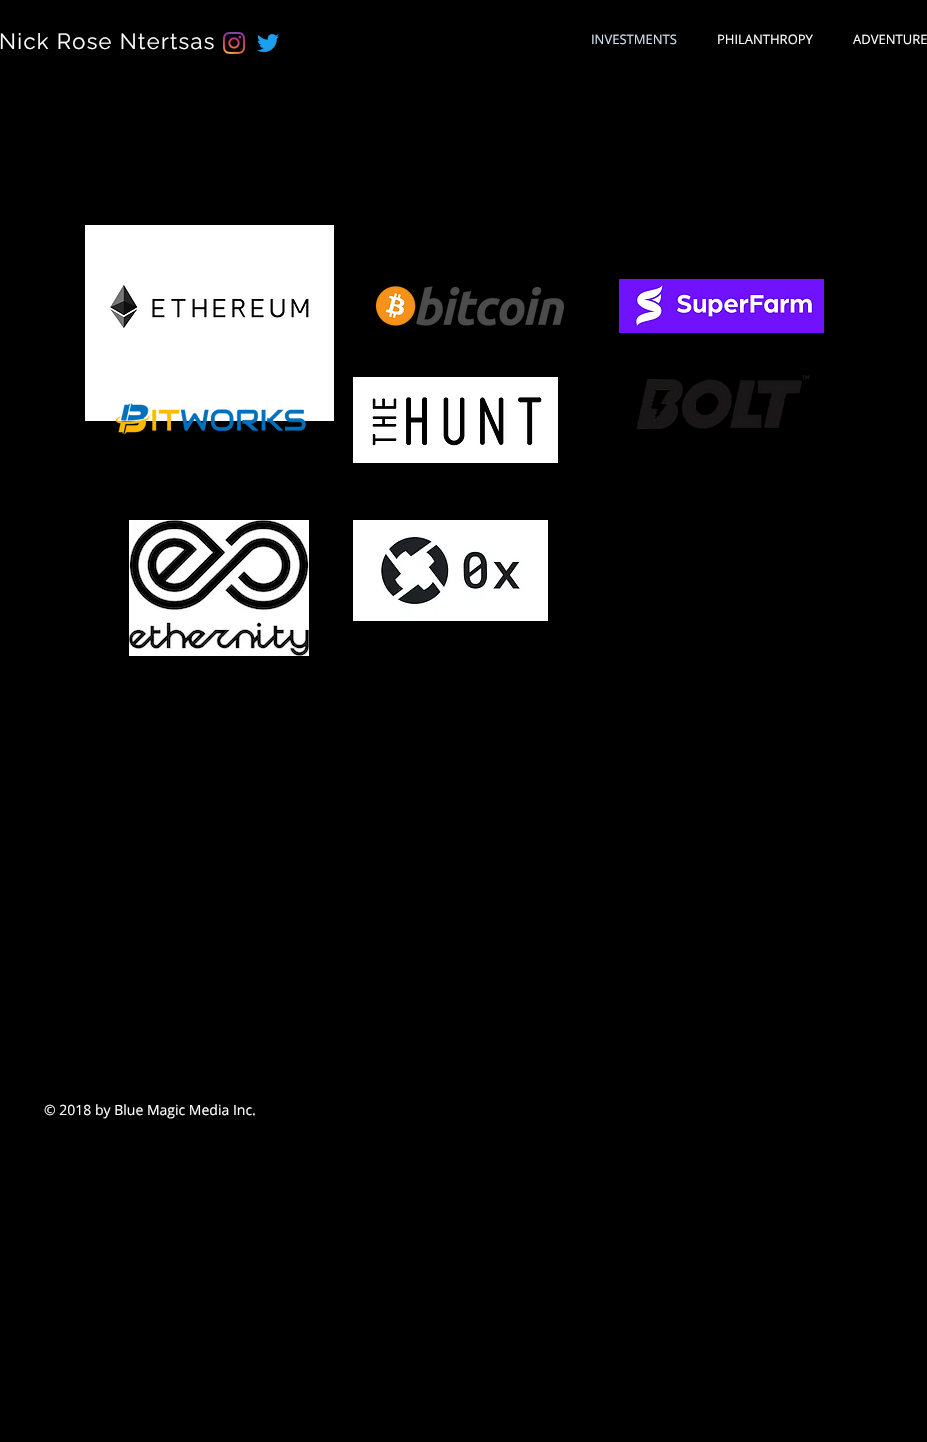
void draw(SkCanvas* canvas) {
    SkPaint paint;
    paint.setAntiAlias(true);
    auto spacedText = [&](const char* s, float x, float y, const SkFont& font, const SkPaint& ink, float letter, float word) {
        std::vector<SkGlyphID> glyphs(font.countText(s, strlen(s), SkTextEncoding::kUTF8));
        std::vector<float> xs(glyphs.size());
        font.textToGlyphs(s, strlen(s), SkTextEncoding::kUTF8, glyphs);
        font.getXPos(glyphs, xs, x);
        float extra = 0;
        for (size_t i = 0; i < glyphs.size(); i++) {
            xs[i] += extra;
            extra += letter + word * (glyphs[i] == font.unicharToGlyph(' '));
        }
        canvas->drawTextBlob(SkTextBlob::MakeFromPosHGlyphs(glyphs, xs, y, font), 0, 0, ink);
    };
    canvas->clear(0xFF000000);
    SkFont font1(fontMgr->matchFamilyStyle("Raleway", SkFontStyle::Normal()), 22);
    font1.setSubpixel(true);
    paint.setColor(0xFFFFFFFF);
    spacedText("Nick Rose Ntertsas", -1, 49, font1, paint, 1.3f, 0);
    canvas->drawImageRect(SkImages::DeferredFromEncodedData(SkData::MakeFromFileName("img1.png")), SkRect::MakeXYWH(223, 32, 22, 22), SkSamplingOptions());
    canvas->drawImageRect(SkImages::DeferredFromEncodedData(SkData::MakeFromFileName("img2.png")), SkRect::MakeXYWH(257, 33, 22, 20), SkSamplingOptions());
    SkFont font2(fontMgr->matchFamilyStyle("Open Sans", SkFontStyle::Normal()), 13);
    font2.setSubpixel(true);
    paint.setColor(0xFFD1E0EB);
    canvas->drawString("INVESTMENTS", 591, 44, font2, paint);
    paint.setColor(0xFFFFFFFF);
    canvas->drawString("PHILANTHROPY", 717, 44, font2, paint);
    canvas->drawString("ADVENTURE", 853, 44, font2, paint);
    canvas->drawImageRect(SkImages::DeferredFromEncodedData(SkData::MakeFromFileName("img3.png")), SkRect::MakeXYWH(85, 225, 249, 196), SkSamplingOptions());
    canvas->drawImageRect(SkImages::DeferredFromEncodedData(SkData::MakeFromFileName("img4.png")), SkRect::MakeXYWH(376, 286, 188, 40), SkSamplingOptions());
    canvas->drawImageRect(SkImages::DeferredFromEncodedData(SkData::MakeFromFileName("img5.png")), SkRect::MakeXYWH(619, 279, 205, 54), SkSamplingOptions());
    canvas->drawImageRect(SkImages::DeferredFromEncodedData(SkData::MakeFromFileName("img6.png")), SkRect::MakeXYWH(115, 403, 191, 32), SkSamplingOptions());
    canvas->drawImageRect(SkImages::DeferredFromEncodedData(SkData::MakeFromFileName("img7.png")), SkRect::MakeXYWH(353, 377, 205, 86), SkSamplingOptions());
    canvas->drawImageRect(SkImages::DeferredFromEncodedData(SkData::MakeFromFileName("img8.png")), SkRect::MakeXYWH(636, 375, 174, 54), SkSamplingOptions());
    canvas->drawImageRect(SkImages::DeferredFromEncodedData(SkData::MakeFromFileName("img9.png")), SkRect::MakeXYWH(129, 520, 180, 136), SkSamplingOptions());
    canvas->drawImageRect(SkImages::DeferredFromEncodedData(SkData::MakeFromFileName("img10.png")), SkRect::MakeXYWH(353, 520, 195, 101), SkSamplingOptions());
    SkFont font3(fontMgr->matchFamilyStyle("Open Sans", SkFontStyle::Normal()), 14);
    font3.setSubpixel(true);
    canvas->drawString("© 2018 by Blue Magic Media Inc.", 44, 1115, font3, paint);
}
